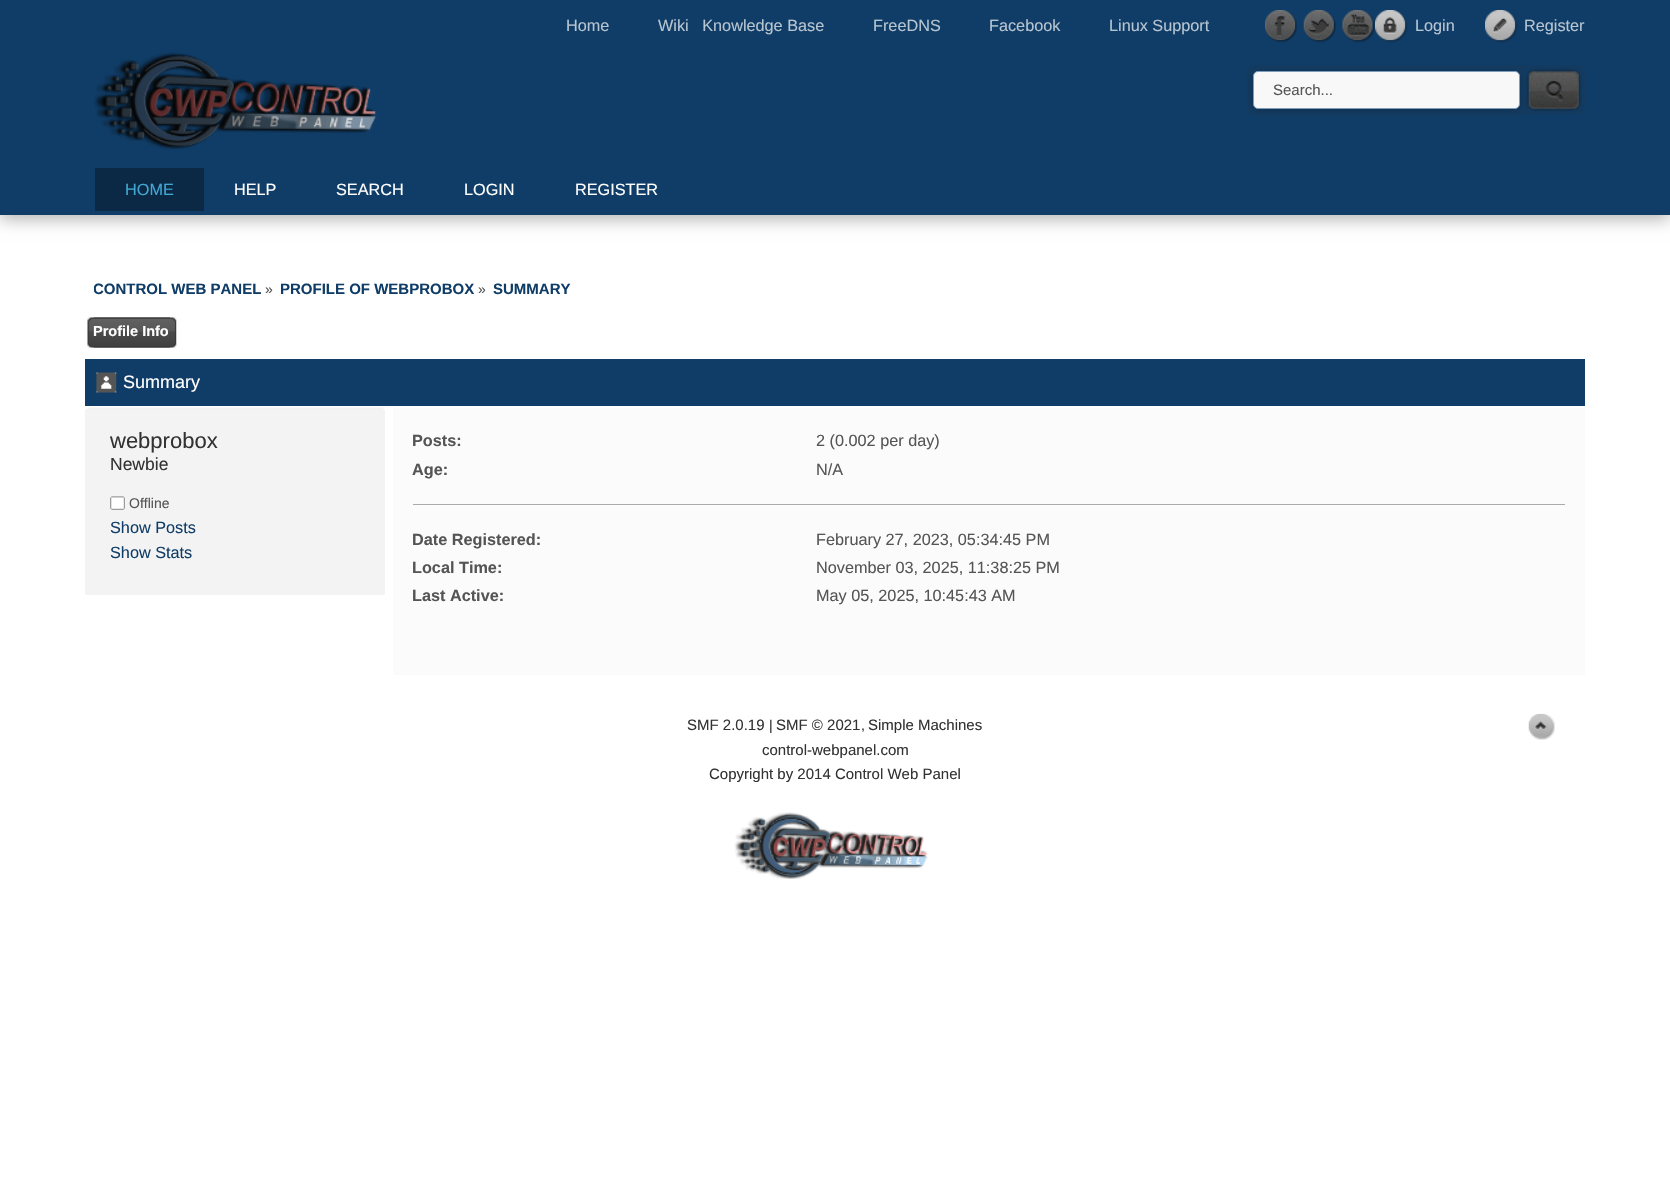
void draw(SkCanvas* canvas) {
    SkPaint paint;
    paint.setAntiAlias(true);
    canvas->clear(0xFFFFFFFF);
    paint.setColor(0x4D000000);
    paint.setMaskFilter(SkMaskFilter::MakeBlur(kNormal_SkBlurStyle, 8));
    canvas->drawRect(SkRect::MakeXYWH(0, 4, 1670, 215), paint);
    paint.setMaskFilter(nullptr);
    paint.setColor(0xFF103D67);
    canvas->drawRect(SkRect::MakeXYWH(0, 0, 1670, 215), paint);
    SkFont font1(fontMgr->matchFamilyStyle("Liberation Sans", SkFontStyle::Normal()), 16.25f);
    font1.setSubpixel(true);
    paint.setColor(0xFFB7C5D1);
    canvas->drawString("Home", 566, 31, font1, paint);
    canvas->drawString("Wiki   Knowledge Base", 658, 31, font1, paint);
    canvas->drawString("FreeDNS", 873, 31, font1, paint);
    canvas->drawString("Facebook", 989, 31, font1, paint);
    canvas->drawString("Linux Support", 1109, 31, font1, paint);
    canvas->drawImageRect(SkImages::DeferredFromEncodedData(SkData::MakeFromFileName("img1.png")), SkRect::MakeXYWH(1265, 10, 33, 33), SkSamplingOptions());
    canvas->drawImageRect(SkImages::DeferredFromEncodedData(SkData::MakeFromFileName("img2.png")), SkRect::MakeXYWH(1303, 10, 33, 33), SkSamplingOptions());
    canvas->drawImageRect(SkImages::DeferredFromEncodedData(SkData::MakeFromFileName("img3.png")), SkRect::MakeXYWH(1342, 10, 33, 33), SkSamplingOptions());
    canvas->drawImageRect(SkImages::DeferredFromEncodedData(SkData::MakeFromFileName("img4.png")), SkRect::MakeXYWH(1375, 10, 33, 33), SkSamplingOptions());
    canvas->drawString("Login", 1415, 31, font1, paint);
    canvas->drawImageRect(SkImages::DeferredFromEncodedData(SkData::MakeFromFileName("img5.png")), SkRect::MakeXYWH(1485, 10, 33, 33), SkSamplingOptions());
    canvas->drawString("Register", 1524, 31, font1, paint);
    canvas->drawImageRect(SkImages::DeferredFromEncodedData(SkData::MakeFromFileName("img6.png")), SkRect::MakeXYWH(93, 52, 284, 98), SkSamplingOptions());
    canvas->drawImageRect(SkImages::DeferredFromEncodedData(SkData::MakeFromFileName("img7.png")), SkRect::MakeXYWH(1246, 65, 339, 50), SkSamplingOptions());
    paint.setColor(0x33000000);
    paint.setMaskFilter(SkMaskFilter::MakeBlur(kNormal_SkBlurStyle, 4));
    canvas->drawRoundRect(SkRect::MakeXYWH(1253, 73, 267, 37), 5, 5, paint);
    paint.setMaskFilter(nullptr);
    paint.setColor(0xFFF8F8F8);
    canvas->drawRoundRect(SkRect::MakeXYWH(1253.5f, 71.5f, 266, 37), 4.5f, 4.5f, paint);
    paint.setStyle(SkPaint::kStroke_Style);
    paint.setStrokeWidth(1);
    paint.setColor(0xFF7F9DB9);
    canvas->drawRoundRect(SkRect::MakeXYWH(1253.5f, 71.5f, 266, 37), 4.5f, 4.5f, paint);
    SkFont font2(fontMgr->matchFamilyStyle("Liberation Sans", SkFontStyle::Normal()), 15);
    font2.setSubpixel(true);
    paint.setStyle(SkPaint::kFill_Style);
    paint.setColor(0xFF555555);
    canvas->drawString("Search...", 1273, 95, font2, paint);
    canvas->drawImageRect(SkImages::DeferredFromEncodedData(SkData::MakeFromFileName("img8.png")), SkRect::MakeXYWH(1525, 68, 57, 44), SkSamplingOptions());
    paint.setColor(0xFF0B2844);
    canvas->drawRect(SkRect::MakeXYWH(95, 168, 109, 43), paint);
    paint.setColor(0xFF41A8D3);
    canvas->drawString("HOME", 125, 195, font1, paint);
    paint.setColor(0xFFFFFFFF);
    canvas->drawString("HELP", 234, 195, font1, paint);
    canvas->drawString("SEARCH", 336, 195, font1, paint);
    canvas->drawString("LOGIN", 464, 195, font1, paint);
    canvas->drawString("REGISTER", 575, 195, font1, paint);
    canvas->save();
    canvas->clipRect(SkRect::MakeXYWH(94, 271, 1484, 39));
    SkFont font3(fontMgr->matchFamilyStyle("Liberation Sans", SkFontStyle::Bold()), 15);
    font3.setSubpixel(true);
    paint.setColor(0xFF103D67);
    canvas->drawString("CONTROL WEB PANEL", 93, 294, font3, paint);
    canvas->restore();
    SkFont font4(fontMgr->matchFamilyStyle("Liberation Sans", SkFontStyle::Normal()), 14);
    font4.setSubpixel(true);
    paint.setColor(0xFF555555);
    canvas->drawString("»", 265, 294, font4, paint);
    paint.setColor(0xFF103D67);
    canvas->drawString("PROFILE OF WEBPROBOX", 280, 294, font3, paint);
    paint.setColor(0xFF555555);
    canvas->drawString("»", 478, 294, font4, paint);
    paint.setColor(0xFF103D67);
    canvas->drawString("SUMMARY", 493, 294, font3, paint);
    canvas->drawImageRect(SkImages::DeferredFromEncodedData(SkData::MakeFromFileName("img9.png")), SkRect::MakeXYWH(93, 317, 84, 31), SkSamplingOptions());
    canvas->drawImageRect(SkImages::DeferredFromEncodedData(SkData::MakeFromFileName("img10.png")), SkRect::MakeXYWH(87, 317, 83, 31), SkSamplingOptions());
    SkFont font5(fontMgr->matchFamilyStyle("Liberation Sans", SkFontStyle::Bold()), 14.5f);
    font5.setSubpixel(true);
    paint.setColor(0xFFFFFFFF);
    canvas->drawString("Profile Info", 93, 336, font5, paint);
    paint.setColor(0xFF103D67);
    canvas->drawRect(SkRect::MakeXYWH(85, 359, 1500, 47), paint);
    canvas->drawImageRect(SkImages::DeferredFromEncodedData(SkData::MakeFromFileName("img11.png")), SkRect::MakeXYWH(96, 372, 21, 21), SkSamplingOptions());
    SkFont font6(fontMgr->matchFamilyStyle("Liberation Sans", SkFontStyle::Normal()), 18);
    font6.setSubpixel(true);
    paint.setColor(0xFFFFFFFF);
    canvas->drawString("Summary", 123, 388, font6, paint);
    paint.setColor(0xFFF3F3F3);
    canvas->drawRect(SkRect::MakeXYWH(85, 410, 300, 185), paint);
    canvas->drawImageRect(SkImages::DeferredFromEncodedData(SkData::MakeFromFileName("img12.png")), SkRect::MakeXYWH(85, 407, 300, 3), SkSamplingOptions());
    canvas->drawImageRect(SkImages::DeferredFromEncodedData(SkData::MakeFromFileName("img13.png")), SkRect::MakeXYWH(383, 408, 2, 2), SkSamplingOptions());
    SkFont font7(fontMgr->matchFamilyStyle("Liberation Sans", SkFontStyle::Normal()), 22);
    font7.setSubpixel(true);
    paint.setColor(0xFF333333);
    canvas->drawString("webprobox", 110, 448, font7, paint);
    SkFont font8(fontMgr->matchFamilyStyle("Liberation Sans", SkFontStyle::Normal()), 17.5f);
    font8.setSubpixel(true);
    canvas->drawString("Newbie", 110, 470, font8, paint);
    canvas->drawImageRect(SkImages::DeferredFromEncodedData(SkData::MakeFromFileName("img14.png")), SkRect::MakeXYWH(110, 496, 15, 14), SkSamplingOptions());
    paint.setColor(0xFF555555);
    canvas->drawString("Offline", 129, 508, font4, paint);
    paint.setColor(0xFF103D67);
    canvas->drawString("Show Posts", 110, 533, font1, paint);
    canvas->drawString("Show Stats", 110, 558, font1, paint);
    paint.setColor(0xFFFBFBFB);
    canvas->drawRect(SkRect::MakeXYWH(85, 594, 1, 1), paint);
    canvas->drawRect(SkRect::MakeXYWH(384, 594, 1, 1), paint);
    canvas->drawRect(SkRect::MakeXYWH(393, 408, 1192, 267), paint);
    paint.setColor(0xFFAAAAAA);
    canvas->drawRect(SkRect::MakeXYWH(413, 504, 1152, 1), paint);
    SkFont font9(fontMgr->matchFamilyStyle("Liberation Sans", SkFontStyle::Bold()), 16.25f);
    font9.setSubpixel(true);
    paint.setColor(0xFF555555);
    canvas->drawString("Posts:", 412, 446, font9, paint);
    canvas->drawString("2 (0.002 per day)", 816, 446, font1, paint);
    canvas->drawString("Age:", 412, 475, font9, paint);
    canvas->drawString("N/A", 816, 475, font1, paint);
    canvas->drawString("Date Registered:", 412, 545, font9, paint);
    canvas->drawString("February 27, 2023, 05:34:45 PM", 816, 545, font1, paint);
    canvas->drawString("Local Time:", 412, 573, font9, paint);
    canvas->drawString("November 03, 2025, 11:38:25 PM", 816, 573, font1, paint);
    canvas->drawString("Last Active:", 412, 601, font9, paint);
    canvas->drawString("May 05, 2025, 10:45:43 AM", 816, 601, font1, paint);
    paint.setColor(0xFF333333);
    canvas->drawString("SMF 2.0.19", 687, 730, font2, paint);
    canvas->drawString("|", 769, 730, font4, paint);
    canvas->drawString("SMF © 2021", 776, 730, font2, paint);
    canvas->drawString(",", 861, 730, font4, paint);
    canvas->drawString("Simple Machines", 868, 730, font2, paint);
    canvas->drawString("control-webpanel.com", 762, 755, font2, paint);
    canvas->drawString("Copyright by 2014 Control Web Panel", 709, 779, font2, paint);
    canvas->drawImageRect(SkImages::DeferredFromEncodedData(SkData::MakeFromFileName("img15.png")), SkRect::MakeXYWH(734, 812, 194, 67), SkSamplingOptions());
    canvas->drawImageRect(SkImages::DeferredFromEncodedData(SkData::MakeFromFileName("img16.png")), SkRect::MakeXYWH(1528, 713, 27, 27), SkSamplingOptions());
}
